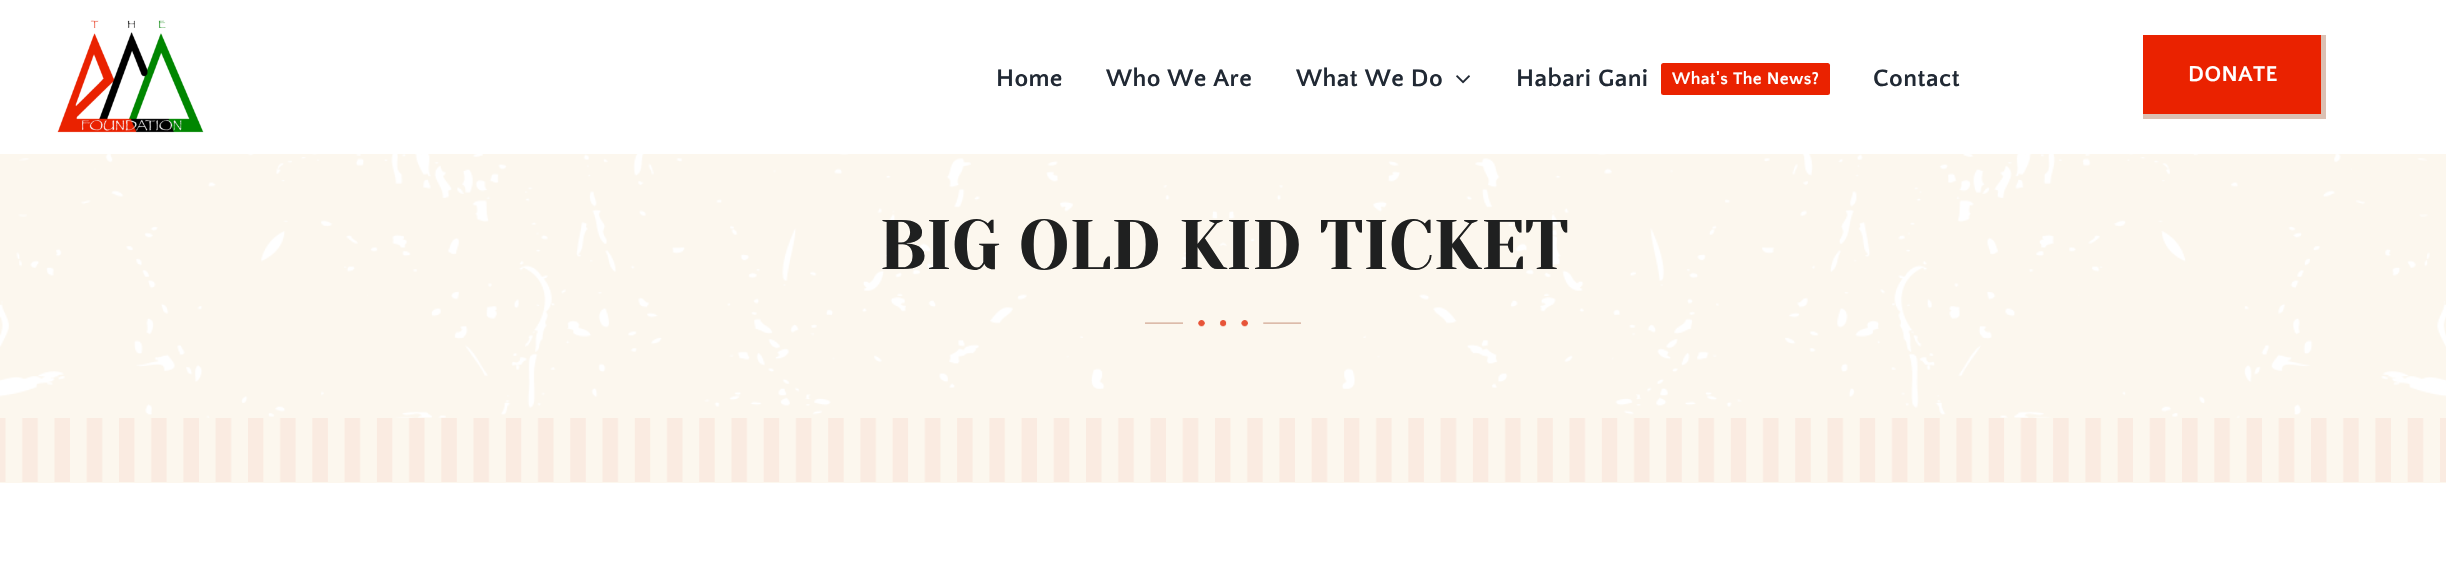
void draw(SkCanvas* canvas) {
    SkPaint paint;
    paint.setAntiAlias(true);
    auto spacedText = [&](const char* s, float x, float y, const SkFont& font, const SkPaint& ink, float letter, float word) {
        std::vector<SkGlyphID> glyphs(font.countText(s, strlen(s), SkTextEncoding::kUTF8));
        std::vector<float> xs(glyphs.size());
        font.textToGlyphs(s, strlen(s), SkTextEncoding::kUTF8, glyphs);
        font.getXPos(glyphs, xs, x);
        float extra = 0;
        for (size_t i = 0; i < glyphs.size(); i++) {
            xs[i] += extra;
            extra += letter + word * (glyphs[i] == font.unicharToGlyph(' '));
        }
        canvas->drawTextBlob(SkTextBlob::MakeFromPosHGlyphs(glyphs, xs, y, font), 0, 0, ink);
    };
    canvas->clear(0xFFFFFFFF);
    canvas->drawImageRect(SkImages::DeferredFromEncodedData(SkData::MakeFromFileName("img1.png")), SkRect::MakeXYWH(57, 20, 147, 113), SkSamplingOptions());
    SkFont font1(fontMgr->matchFamilyStyle("Quattrocento Sans", SkFontStyle::Bold()), 25);
    font1.setSubpixel(true);
    paint.setColor(0xFF212934);
    spacedText("Home", 996, 86, font1, paint, 0.4f, 0);
    spacedText("Who We Are", 1106, 86, font1, paint, 0.4f, 0);
    spacedText("What We Do", 1296, 86, font1, paint, 0.4f, 0);
    canvas->drawImageRect(SkImages::DeferredFromEncodedData(SkData::MakeFromFileName("img2.png")), SkRect::MakeXYWH(1456, 75, 14, 9), SkSamplingOptions());
    spacedText("Habari Gani", 1516, 86, font1, paint, 0.4f, 0);
    paint.setColor(0xFFEA2200);
    canvas->drawRoundRect(SkRect::MakeXYWH(1661, 63, 169, 32), 2.5f, 2.5f, paint);
    SkFont font2(fontMgr->matchFamilyStyle("Quattrocento Sans", SkFontStyle::Bold()), 17.5f);
    font2.setSubpixel(true);
    paint.setColor(0xFFFFFFFF);
    spacedText("What's The News?", 1672, 84, font2, paint, 0.4f, 0);
    paint.setColor(0xFF212934);
    spacedText("Contact", 1873, 86, font1, paint, 0.4f, 0);
    paint.setColor(0xFFEA2200);
    canvas->drawRect(SkRect::MakeXYWH(2143, 35, 178, 79), paint);
    paint.setColor(0xFFDBC0B3);
    canvas->drawRect(SkRect::MakeXYWH(2321, 35, 5, 84), paint);
    canvas->drawRect(SkRect::MakeXYWH(2143, 114, 183, 5), paint);
    SkFont font3(fontMgr->matchFamilyStyle("Quattrocento Sans", SkFontStyle::Bold()), 22.5f);
    font3.setSubpixel(true);
    paint.setColor(0xFFFFFFFF);
    spacedText("DONATE", 2188, 81, font3, paint, 0.5f, 0);
    paint.setColor(0xFFFCF7EE);
    canvas->drawRect(SkRect::MakeXYWH(0, 154, 2446, 329), paint);
    canvas->drawImageRect(SkImages::DeferredFromEncodedData(SkData::MakeFromFileName("img3.png")), SkRect::MakeXYWH(0, 154, 2446, 264), SkSamplingOptions());
    SkFont font4(fontMgr->matchFamilyStyle("Yeseva One", SkFontStyle::Normal()), 70);
    font4.setSubpixel(true);
    paint.setColor(0xFF1F2020);
    spacedText("BIG OLD KID TICKET", 879, 269, font4, paint, -1, 0);
    canvas->drawImageRect(SkImages::DeferredFromEncodedData(SkData::MakeFromFileName("img4.png")), SkRect::MakeXYWH(1145, 320, 156, 7), SkSamplingOptions());
    canvas->drawImageRect(SkImages::DeferredFromEncodedData(SkData::MakeFromFileName("img5.png")), SkRect::MakeXYWH(0, 418, 2446, 64), SkSamplingOptions());
}
